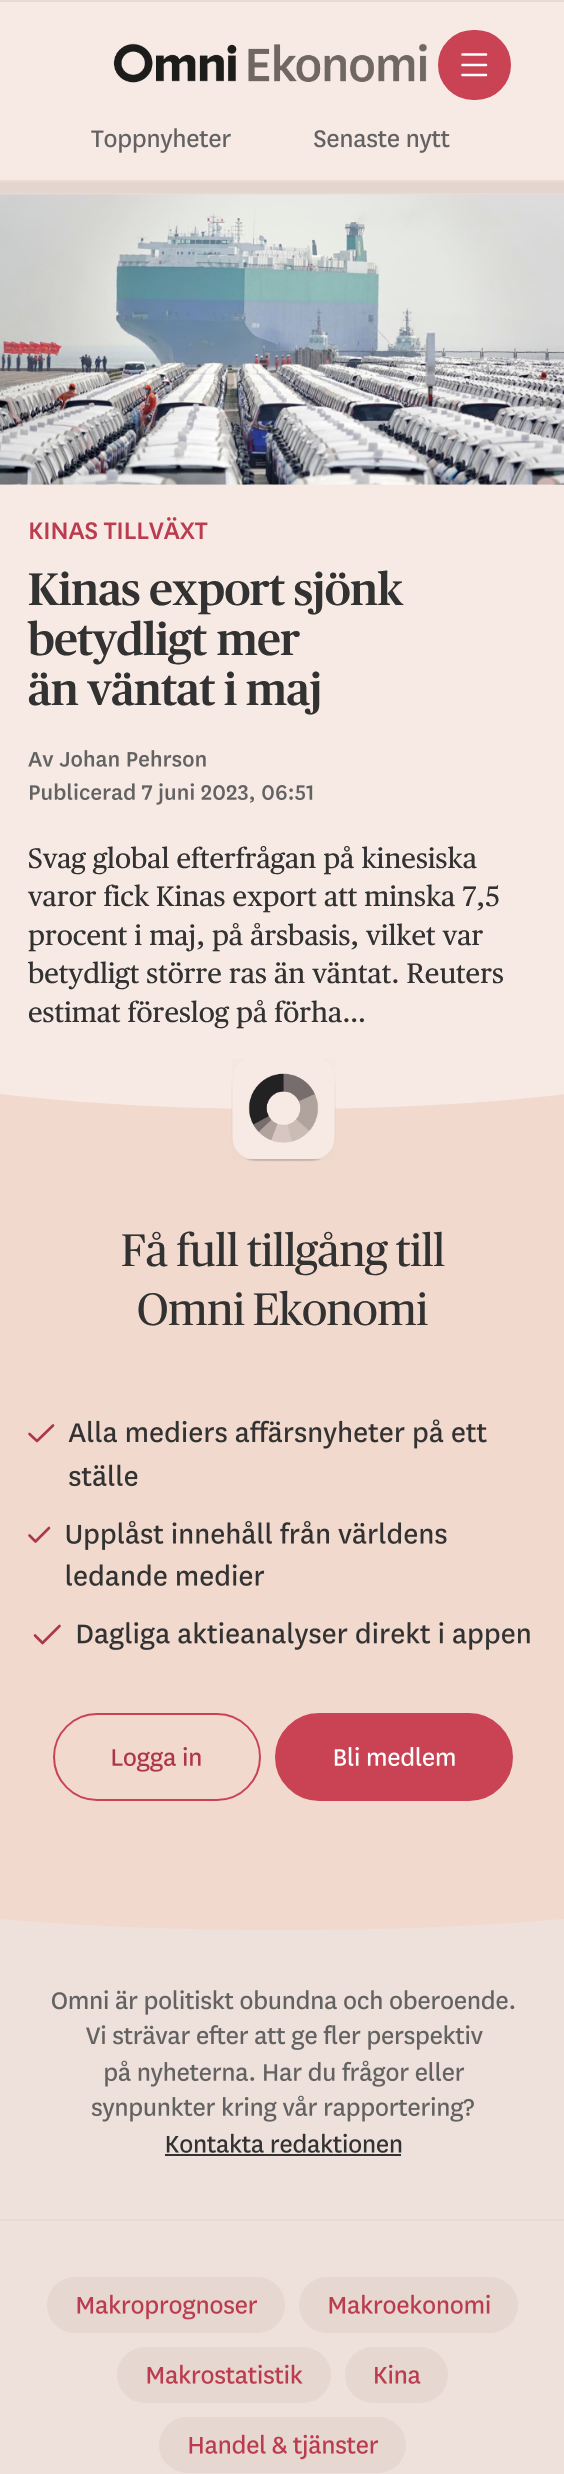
void draw(SkCanvas* canvas) {
    SkPaint paint;
    paint.setAntiAlias(true);
    auto spacedText = [&](const char* s, float x, float y, const SkFont& font, const SkPaint& ink, float letter, float word) {
        std::vector<SkGlyphID> glyphs(font.countText(s, strlen(s), SkTextEncoding::kUTF8));
        std::vector<float> xs(glyphs.size());
        font.textToGlyphs(s, strlen(s), SkTextEncoding::kUTF8, glyphs);
        font.getXPos(glyphs, xs, x);
        float extra = 0;
        for (size_t i = 0; i < glyphs.size(); i++) {
            xs[i] += extra;
            extra += letter + word * (glyphs[i] == font.unicharToGlyph(' '));
        }
        canvas->drawTextBlob(SkTextBlob::MakeFromPosHGlyphs(glyphs, xs, y, font), 0, 0, ink);
    };
    canvas->clear(0xFFE4D5CF);
    paint.setColor(0xFFF7EAE4);
    canvas->drawRect(SkRect::MakeXYWH(0, 2, 564, 178), paint);
    paint.setColor(0xFFE9DAD4);
    canvas->drawRect(SkRect::MakeXYWH(0, 0, 564, 2), paint);
    canvas->drawRect(SkRect::MakeXYWH(0, 180, 564, 2), paint);
    paint.setColor(0xFFC94355);
    canvas->drawRoundRect(SkRect::MakeXYWH(439, 31, 71, 68), 34, 34, paint);
    paint.setStyle(SkPaint::kStroke_Style);
    paint.setStrokeWidth(2);
    canvas->drawRoundRect(SkRect::MakeXYWH(439, 31, 71, 68), 34, 34, paint);
    paint.setStrokeWidth(2.6f);
    paint.setStrokeCap(SkPaint::kRound_Cap);
    paint.setStrokeJoin(SkPaint::kRound_Join);
    paint.setColor(0xFFFFFFFF);
    canvas->drawPath(SkPathBuilder().moveTo(462.5f, 54.5f).lineTo(486, 54.5f).moveTo(462.5f, 65).lineTo(486, 65).moveTo(462.5f, 75).lineTo(486, 75).detach(), paint);
    canvas->drawImageRect(SkImages::DeferredFromEncodedData(SkData::MakeFromFileName("img1.png")), SkRect::MakeXYWH(91, 128, 140, 25), SkSamplingOptions());
    canvas->drawImageRect(SkImages::DeferredFromEncodedData(SkData::MakeFromFileName("img2.png")), SkRect::MakeXYWH(314, 130, 136, 23), SkSamplingOptions());
    canvas->drawImageRect(SkImages::DeferredFromEncodedData(SkData::MakeFromFileName("img3.png")), SkRect::MakeXYWH(113, 43, 314, 40), SkSamplingOptions());
    paint.setStyle(SkPaint::kFill_Style);
    paint.setColor(0xFFF7EAE4);
    canvas->drawRect(SkRect::MakeXYWH(0, 484, 564, 556), paint);
    paint.setColor(0xFFE9DAD4);
    canvas->drawRect(SkRect::MakeXYWH(0, 193, 564, 2), paint);
    canvas->drawImageRect(SkImages::DeferredFromEncodedData(SkData::MakeFromFileName("img4.png")), SkRect::MakeXYWH(0, 194, 564, 291), SkSamplingOptions());
    canvas->drawImageRect(SkImages::DeferredFromEncodedData(SkData::MakeFromFileName("img5.png")), SkRect::MakeXYWH(30, 517, 178, 23), SkSamplingOptions());
    SkFont font1(fontMgr->matchFamilyStyle("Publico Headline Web", SkFontStyle(500, SkFontStyle::kNormal_Width, SkFontStyle::kUpright_Slant)), 45.5f);
    font1.setSubpixel(true);
    paint.setColor(0xFF333232);
    spacedText("Kinas export sjönk", 28, 605, font1, paint, -0.5f, 0);
    spacedText("betydligt mer", 28, 655, font1, paint, -0.5f, 1);
    spacedText("än väntat i maj", 28, 705, font1, paint, -0.5f, 0);
    canvas->drawImageRect(SkImages::DeferredFromEncodedData(SkData::MakeFromFileName("img6.png")), SkRect::MakeXYWH(28, 752, 26, 15), SkSamplingOptions());
    canvas->drawImageRect(SkImages::DeferredFromEncodedData(SkData::MakeFromFileName("img7.png")), SkRect::MakeXYWH(59, 750, 147, 17), SkSamplingOptions());
    canvas->drawImageRect(SkImages::DeferredFromEncodedData(SkData::MakeFromFileName("img8.png")), SkRect::MakeXYWH(30, 783, 105, 17), SkSamplingOptions());
    canvas->drawImageRect(SkImages::DeferredFromEncodedData(SkData::MakeFromFileName("img9.png")), SkRect::MakeXYWH(142, 783, 171, 22), SkSamplingOptions());
    SkFont font2(fontMgr->matchFamilyStyle("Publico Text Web", SkFontStyle::Normal()), 28);
    font2.setSubpixel(true);
    canvas->drawString("Svag global efterfrågan på kinesiska", 28, 868, font2, paint);
    canvas->drawString("varor fick Kinas export att minska 7,5", 28, 906, font2, paint);
    canvas->drawString("procent i maj, på årsbasis, vilket var", 28, 945, font2, paint);
    canvas->drawString("betydligt större ras än väntat. Reuters", 28, 983, font2, paint);
    canvas->drawString("estimat föreslog på förha…", 28, 1022, font2, paint);
    paint.setColor(0xFFF1D9CD);
    canvas->drawRect(SkRect::MakeXYWH(0, 1094, 564, 819), paint);
    paint.setColor(0xFFF7EAE4);
    canvas->drawPath(SkPathBuilder().moveTo(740, 1042).cubicTo(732, 1079, 530, 1109, 283, 1109).cubicTo(32, 1109, -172, 1078, -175, 1040).lineTo(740, 1040).close().detach(), paint);
    canvas->drawImageRect(SkImages::DeferredFromEncodedData(SkData::MakeFromFileName("img10.png")), SkRect::MakeXYWH(231, 1059, 105, 103), SkSamplingOptions());
    SkFont font3(fontMgr->matchFamilyStyle("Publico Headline", SkFontStyle::Normal()), 45.5f);
    font3.setSubpixel(true);
    paint.setColor(0xFF333232);
    spacedText("Få full tillgång till", 121, 1266, font3, paint, -0.5f, -0.5f);
    spacedText("Omni Ekonomi", 137, 1325, font3, paint, -0.5f, -1);
    paint.setStyle(SkPaint::kStroke_Style);
    paint.setColor(0xFFAD3747);
    canvas->drawPath(SkPathBuilder().moveTo(53, 1425.5f).lineTo(37, 1441).lineTo(29.5f, 1434).detach(), paint);
    canvas->drawImageRect(SkImages::DeferredFromEncodedData(SkData::MakeFromFileName("img11.png")), SkRect::MakeXYWH(68, 1419, 419, 30), SkSamplingOptions());
    canvas->drawImageRect(SkImages::DeferredFromEncodedData(SkData::MakeFromFileName("img12.png")), SkRect::MakeXYWH(69, 1464, 69, 23), SkSamplingOptions());
    canvas->drawPath(SkPathBuilder().moveTo(49, 1528).lineTo(35.5f, 1541.5f).lineTo(29.5f, 1535.5f).detach(), paint);
    canvas->drawImageRect(SkImages::DeferredFromEncodedData(SkData::MakeFromFileName("img13.png")), SkRect::MakeXYWH(66, 1521, 381, 29), SkSamplingOptions());
    canvas->drawImageRect(SkImages::DeferredFromEncodedData(SkData::MakeFromFileName("img14.png")), SkRect::MakeXYWH(66, 1564, 199, 22), SkSamplingOptions());
    canvas->drawPath(SkPathBuilder().moveTo(59.5f, 1626).lineTo(42.5f, 1643).lineTo(35, 1635.5f).detach(), paint);
    canvas->drawImageRect(SkImages::DeferredFromEncodedData(SkData::MakeFromFileName("img15.png")), SkRect::MakeXYWH(77, 1622, 453, 28), SkSamplingOptions());
    paint.setStrokeWidth(2);
    paint.setStrokeCap(SkPaint::kButt_Cap);
    paint.setStrokeJoin(SkPaint::kMiter_Join);
    paint.setColor(0xFFC94355);
    canvas->drawRoundRect(SkRect::MakeXYWH(54, 1714, 206, 86), 43, 43, paint);
    canvas->drawImageRect(SkImages::DeferredFromEncodedData(SkData::MakeFromFileName("img16.png")), SkRect::MakeXYWH(112, 1747, 89, 25), SkSamplingOptions());
    paint.setStyle(SkPaint::kFill_Style);
    canvas->drawRoundRect(SkRect::MakeXYWH(276, 1714, 236, 86), 43, 43, paint);
    paint.setStyle(SkPaint::kStroke_Style);
    canvas->drawRoundRect(SkRect::MakeXYWH(276, 1714, 236, 86), 43, 43, paint);
    canvas->drawImageRect(SkImages::DeferredFromEncodedData(SkData::MakeFromFileName("img17.png")), SkRect::MakeXYWH(334, 1747, 121, 20), SkSamplingOptions());
    paint.setStyle(SkPaint::kFill_Style);
    paint.setColor(0xFFEEE0DA);
    canvas->drawRect(SkRect::MakeXYWH(0, 1918, 564, 301), paint);
    canvas->save();
    canvas->clipRect(SkRect::MakeXYWH(0, 1913, 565, 306));
    paint.setColor(0xFFF1D9CD);
    canvas->drawPath(SkPathBuilder().moveTo(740, 1879).cubicTo(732, 1907, 530, 1930, 283, 1930).cubicTo(32, 1930, -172, 1907, -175, 1878).lineTo(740, 1878).close().detach(), paint);
    canvas->restore();
    canvas->drawImageRect(SkImages::DeferredFromEncodedData(SkData::MakeFromFileName("img18.png")), SkRect::MakeXYWH(52, 1990, 463, 25), SkSamplingOptions());
    canvas->drawImageRect(SkImages::DeferredFromEncodedData(SkData::MakeFromFileName("img19.png")), SkRect::MakeXYWH(86, 2025, 397, 25), SkSamplingOptions());
    canvas->drawImageRect(SkImages::DeferredFromEncodedData(SkData::MakeFromFileName("img20.png")), SkRect::MakeXYWH(105, 2060, 360, 27), SkSamplingOptions());
    canvas->drawImageRect(SkImages::DeferredFromEncodedData(SkData::MakeFromFileName("img21.png")), SkRect::MakeXYWH(91, 2095, 383, 27), SkSamplingOptions());
    canvas->drawImageRect(SkImages::DeferredFromEncodedData(SkData::MakeFromFileName("img22.png")), SkRect::MakeXYWH(166, 2133, 236, 20), SkSamplingOptions());
    paint.setColor(0xFF333232);
    canvas->drawRect(SkRect::MakeXYWH(165, 2154, 236, 2), paint);
    paint.setColor(0xFFEEE0DA);
    canvas->drawRect(SkRect::MakeXYWH(0, 2221, 564, 253), paint);
    paint.setColor(0xFFE9DAD4);
    canvas->drawRect(SkRect::MakeXYWH(0, 2219, 564, 2), paint);
    paint.setColor(0xFFE6D7D0);
    canvas->drawRoundRect(SkRect::MakeXYWH(47, 2277, 238, 56), 28, 28, paint);
    canvas->drawImageRect(SkImages::DeferredFromEncodedData(SkData::MakeFromFileName("img23.png")), SkRect::MakeXYWH(77, 2294, 181, 26), SkSamplingOptions());
    canvas->drawRoundRect(SkRect::MakeXYWH(299, 2277, 219, 56), 28, 28, paint);
    canvas->drawImageRect(SkImages::DeferredFromEncodedData(SkData::MakeFromFileName("img24.png")), SkRect::MakeXYWH(329, 2294, 161, 20), SkSamplingOptions());
    canvas->drawRoundRect(SkRect::MakeXYWH(117, 2347, 214, 56), 28, 28, paint);
    canvas->drawImageRect(SkImages::DeferredFromEncodedData(SkData::MakeFromFileName("img25.png")), SkRect::MakeXYWH(147, 2364, 156, 20), SkSamplingOptions());
    canvas->drawRoundRect(SkRect::MakeXYWH(345, 2347, 103, 56), 28, 28, paint);
    canvas->drawImageRect(SkImages::DeferredFromEncodedData(SkData::MakeFromFileName("img26.png")), SkRect::MakeXYWH(375, 2364, 46, 20), SkSamplingOptions());
    canvas->drawRoundRect(SkRect::MakeXYWH(159, 2417, 247, 56), 28, 28, paint);
    canvas->drawImageRect(SkImages::DeferredFromEncodedData(SkData::MakeFromFileName("img27.png")), SkRect::MakeXYWH(189, 2434, 190, 26), SkSamplingOptions());
}
